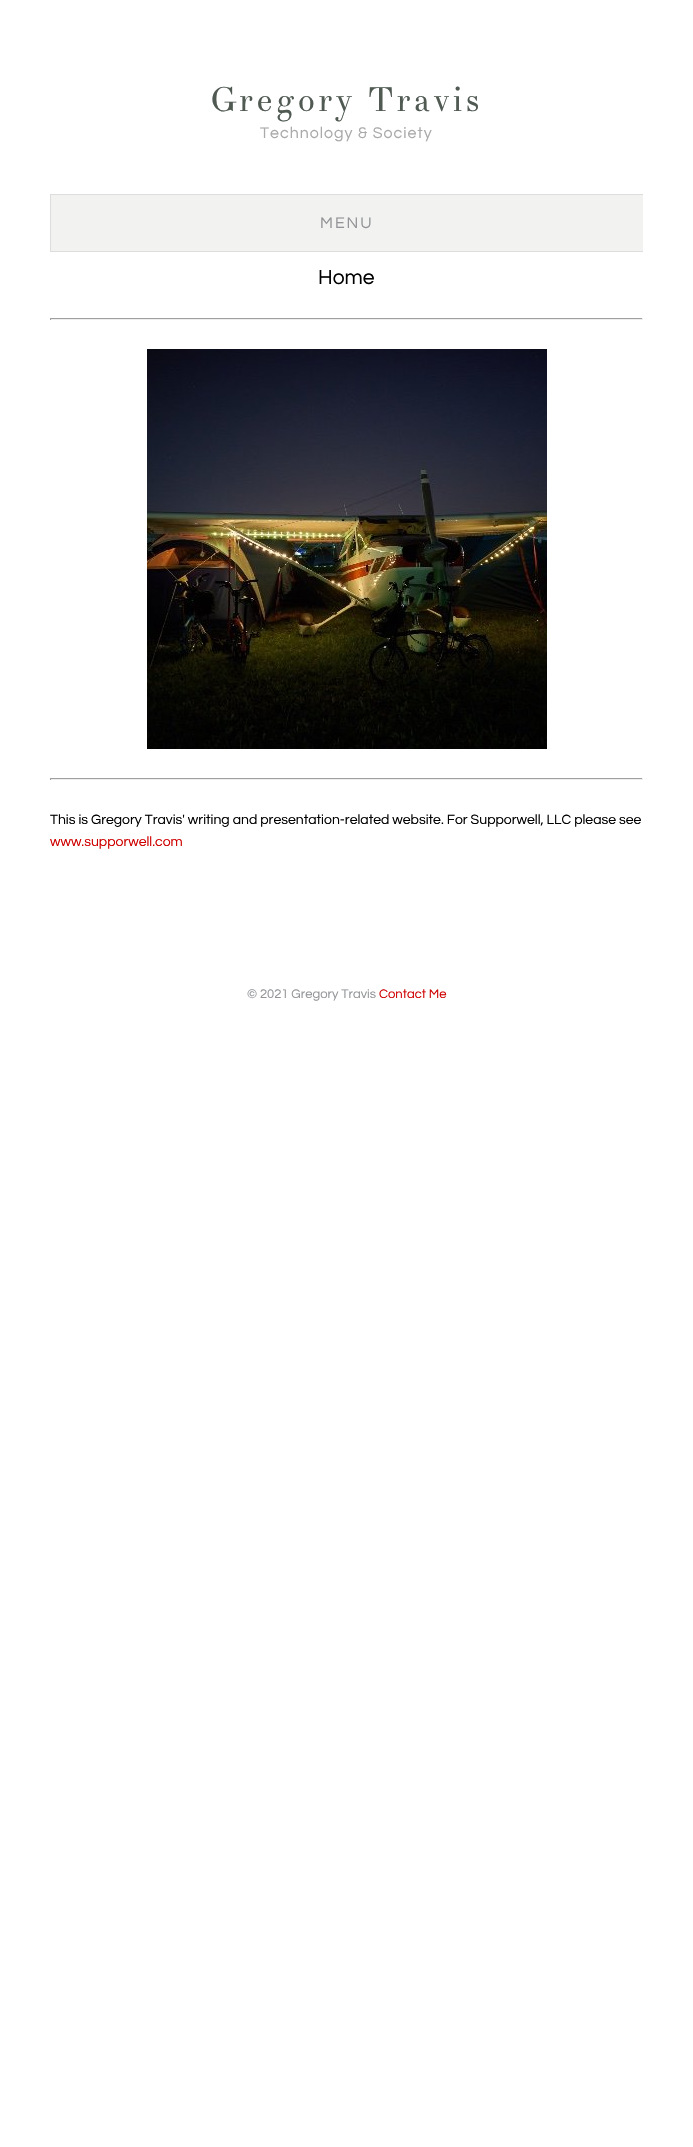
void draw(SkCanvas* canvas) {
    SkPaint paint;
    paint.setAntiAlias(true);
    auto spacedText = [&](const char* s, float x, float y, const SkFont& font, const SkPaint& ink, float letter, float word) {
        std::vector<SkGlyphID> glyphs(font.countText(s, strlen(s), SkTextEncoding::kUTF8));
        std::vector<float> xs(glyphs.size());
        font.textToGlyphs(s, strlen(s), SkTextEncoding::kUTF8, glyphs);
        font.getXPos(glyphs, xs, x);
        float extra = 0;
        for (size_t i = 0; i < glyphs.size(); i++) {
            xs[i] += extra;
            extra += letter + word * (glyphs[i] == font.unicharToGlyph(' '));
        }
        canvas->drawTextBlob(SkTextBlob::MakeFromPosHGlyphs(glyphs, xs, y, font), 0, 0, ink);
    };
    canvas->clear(0xFFFFFFFF);
    SkFont font1(fontMgr->matchFamilyStyle("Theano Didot", SkFontStyle::Normal()), 34);
    font1.setSubpixel(true);
    paint.setColor(0xFF505A53);
    spacedText("Gregory Travis", 210, 111, font1, paint, 3, 0);
    SkFont font2(fontMgr->matchFamilyStyle("Questrial", SkFontStyle::Normal()), 16);
    font2.setSubpixel(true);
    paint.setColor(0xFFAAAAAA);
    spacedText("Technology & Society", 260, 138, font2, paint, 1, 0);
    paint.setColor(0xFFF2F2F0);
    canvas->drawRect(SkRect::MakeXYWH(51, 195, 592, 56), paint);
    canvas->save();
    canvas->clipRect(SkRect::MakeXYWH(0, 144, 643, 911));
    paint.setStyle(SkPaint::kStroke_Style);
    paint.setStrokeWidth(1);
    paint.setColor(0xFFDDDDDD);
    canvas->drawRect(SkRect::MakeXYWH(50.5f, 194.5f, 593, 57), paint);
    canvas->restore();
    paint.setStyle(SkPaint::kFill_Style);
    paint.setColor(0xFF929497);
    spacedText("MENU", 320, 228, font2, paint, 2, 0);
    SkFont font3(fontMgr->matchFamilyStyle("Questrial", SkFontStyle::Normal()), 21);
    font3.setSubpixel(true);
    paint.setColor(0xFF000000);
    canvas->drawString("Home", 318, 284, font3, paint);
    paint.setColor(0xFF9F9F9F);
    canvas->drawRect(SkRect::MakeXYWH(50, 318, 593, 1), paint);
    paint.setColor(0xFFEEEEEE);
    canvas->drawRect(SkRect::MakeXYWH(642, 318, 1, 2), paint);
    canvas->drawRect(SkRect::MakeXYWH(50, 319, 593, 1), paint);
    paint.setColor(0xFF9F9F9F);
    canvas->drawRect(SkRect::MakeXYWH(50, 318, 1, 2), paint);
    canvas->drawImageRect(SkImages::DeferredFromEncodedData(SkData::MakeFromFileName("img1.png")), SkRect::MakeXYWH(147, 349, 400, 400), SkSamplingOptions());
    canvas->drawRect(SkRect::MakeXYWH(50, 778, 593, 1), paint);
    paint.setColor(0xFFEEEEEE);
    canvas->drawRect(SkRect::MakeXYWH(642, 778, 1, 2), paint);
    canvas->drawRect(SkRect::MakeXYWH(50, 779, 593, 1), paint);
    paint.setColor(0xFF9F9F9F);
    canvas->drawRect(SkRect::MakeXYWH(50, 778, 1, 2), paint);
    SkFont font4(fontMgr->matchFamilyStyle("Questrial", SkFontStyle::Normal()), 14);
    font4.setSubpixel(true);
    paint.setColor(0xFF000000);
    canvas->drawString("This is Gregory Travis' writing and presentation-related website. For Supporwell, LLC please see", 50, 824, font4, paint);
    paint.setColor(0xFFCF0000);
    canvas->drawString("www.supporwell.com", 50, 846, font4, paint);
    SkFont font5(fontMgr->matchFamilyStyle("Questrial", SkFontStyle::Normal()), 13);
    font5.setSubpixel(true);
    paint.setColor(0xFF929497);
    canvas->drawString("© 2021 Gregory Travis", 247, 998, font5, paint);
    paint.setColor(0xFFCF0000);
    canvas->drawString("Contact Me", 379, 998, font5, paint);
}
